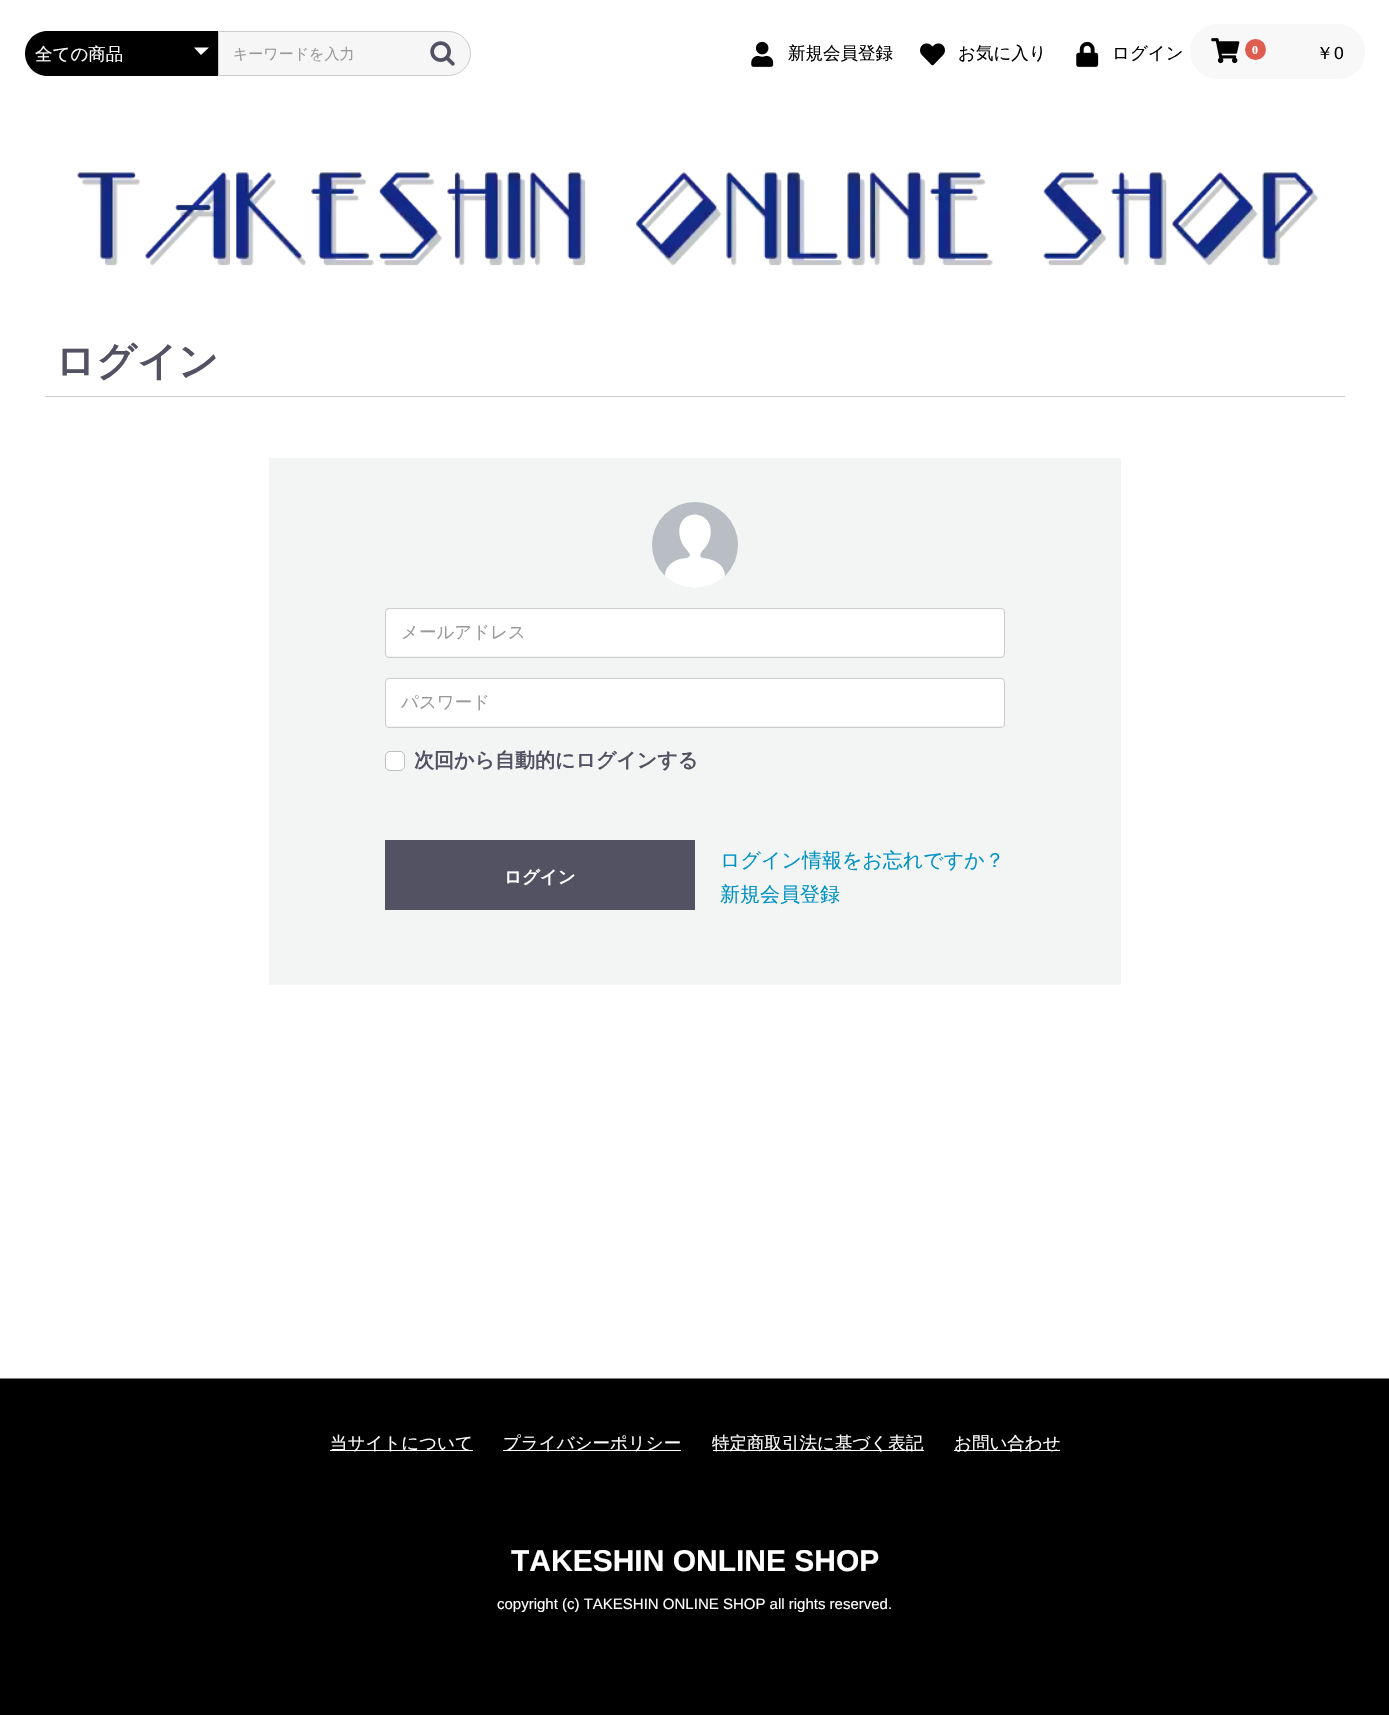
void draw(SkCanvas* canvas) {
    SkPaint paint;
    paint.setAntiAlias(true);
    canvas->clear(0xFFFFFFFF);
    paint.setColor(0xFF000000);
    canvas->drawPath(SkPathBuilder().moveTo(47.5f, 31).lineTo(218, 31).lineTo(218, 76).lineTo(47.5f, 76).cubicTo(35, 76, 25, 66, 25, 53.5f).cubicTo(25, 41, 35, 31, 47.5f, 31).close().detach(), paint);
    SkFont font1(fontMgr->matchFamilyStyle("WenQuanYi Zen Hei", SkFontStyle(500, SkFontStyle::kNormal_Width, SkFontStyle::kUpright_Slant)), 17.5f);
    font1.setSubpixel(true);
    paint.setColor(0xFFFFFFFF);
    canvas->drawString("全ての商品", 35, 60, font1, paint);
    canvas->drawPath(SkPathBuilder().moveTo(194, 47.5f).lineTo(209, 47.5f).lineTo(201, 55).close().detach(), paint);
    paint.setColor(0xFFF6F6F6);
    canvas->drawPath(SkPathBuilder().moveTo(218.5f, 31.5f).lineTo(448.5f, 31.5f).cubicTo(460.5f, 31.5f, 470.5f, 41.5f, 470.5f, 53.5f).cubicTo(470.5f, 65.5f, 460.5f, 75.5f, 448.5f, 75.5f).lineTo(218.5f, 75.5f).close().detach(), paint);
    paint.setStyle(SkPaint::kStroke_Style);
    paint.setStrokeWidth(1);
    paint.setColor(0xFFCCCCCC);
    canvas->drawPath(SkPathBuilder().moveTo(218.5f, 31.5f).lineTo(448.5f, 31.5f).cubicTo(460.5f, 31.5f, 470.5f, 41.5f, 470.5f, 53.5f).cubicTo(470.5f, 65.5f, 460.5f, 75.5f, 448.5f, 75.5f).lineTo(218.5f, 75.5f).close().detach(), paint);
    SkFont font2(fontMgr->matchFamilyStyle("WenQuanYi Zen Hei", SkFontStyle(500, SkFontStyle::kNormal_Width, SkFontStyle::kUpright_Slant)), 15);
    font2.setSubpixel(true);
    paint.setStyle(SkPaint::kFill_Style);
    paint.setColor(0xFF999999);
    canvas->drawString("キーワードを入力", 233, 59, font2, paint);
    canvas->drawImageRect(SkImages::DeferredFromEncodedData(SkData::MakeFromFileName("img1.png")), SkRect::MakeXYWH(430, 41, 25, 25), SkSamplingOptions());
    canvas->drawImageRect(SkImages::DeferredFromEncodedData(SkData::MakeFromFileName("img2.png")), SkRect::MakeXYWH(751, 41, 23, 26), SkSamplingOptions());
    paint.setColor(0xFF000000);
    canvas->drawString("新規会員登録", 788, 59, font1, paint);
    canvas->drawImageRect(SkImages::DeferredFromEncodedData(SkData::MakeFromFileName("img3.png")), SkRect::MakeXYWH(920, 43, 25, 23), SkSamplingOptions());
    canvas->drawString("お気に入り", 958, 59, font1, paint);
    canvas->drawImageRect(SkImages::DeferredFromEncodedData(SkData::MakeFromFileName("img4.png")), SkRect::MakeXYWH(1076, 41, 23, 26), SkSamplingOptions());
    canvas->drawString("ログイン", 1112, 59, font1, paint);
    paint.setColor(0xFFF8F8F8);
    canvas->drawRoundRect(SkRect::MakeXYWH(1190, 24, 175, 55), 27.5f, 27.5f, paint);
    canvas->drawImageRect(SkImages::DeferredFromEncodedData(SkData::MakeFromFileName("img5.png")), SkRect::MakeXYWH(1211, 38, 29, 26), SkSamplingOptions());
    paint.setColor(0xFFDE5D50);
    canvas->drawCircle(1255.5f, 49.5f, 10.5f, paint);
    SkFont font3(fontMgr->matchFamilyStyle("Liberation Serif", SkFontStyle::Bold()), 12);
    font3.setSubpixel(true);
    paint.setColor(0xFFFFFFFF);
    canvas->drawString("0", 1252, 54, font3, paint);
    paint.setColor(0xFF000000);
    canvas->drawString("￥", 1316, 59, font1, paint);
    SkFont font4(fontMgr->matchFamilyStyle("Liberation Sans", SkFontStyle::Normal()), 17.5f);
    font4.setSubpixel(true);
    canvas->drawString("0", 1334, 59, font4, paint);
    canvas->drawImageRect(SkImages::DeferredFromEncodedData(SkData::MakeFromFileName("img6.png")), SkRect::MakeXYWH(77, 172, 1241, 94), SkSamplingOptions());
    paint.setColor(0xFFCCCCCC);
    canvas->drawRect(SkRect::MakeXYWH(45, 396, 1300, 1), paint);
    SkFont font5(fontMgr->matchFamilyStyle("WenQuanYi Zen Hei", SkFontStyle::Bold()), 40);
    font5.setSubpixel(true);
    paint.setColor(0xFF525263);
    canvas->drawString("ログイン", 55, 375, font5, paint);
    paint.setColor(0xFFF3F4F4);
    canvas->drawRect(SkRect::MakeXYWH(269, 458, 852, 527), paint);
    paint.setColor(0xFFB8BEC4);
    canvas->drawCircle(695, 545, 43, paint);
    paint.setColor(0xFFFFFFFF);
    canvas->drawPath(SkPathBuilder(SkPathFillType::kEvenOdd).moveTo(703, 558).cubicTo(698, 557, 701, 552, 703, 550).lineTo(704, 549).cubicTo(714, 539, 714, 518, 698, 515).cubicTo(694, 514, 690, 515, 686, 517).cubicTo(677, 524, 678, 536, 683, 545).cubicTo(684, 547, 690, 553, 690, 555).cubicTo(689, 559, 683, 558, 680, 559).cubicTo(672, 561, 665, 567, 665, 576).cubicTo(681, 592, 709, 592, 725, 576).cubicTo(725, 564, 713, 559, 703, 558).close().detach(), paint);
    canvas->drawRoundRect(SkRect::MakeXYWH(386, 609, 618, 47), 2.5f, 2.5f, paint);
    paint.setStyle(SkPaint::kStroke_Style);
    paint.setColor(0xFFCCCCCC);
    canvas->drawRoundRect(SkRect::MakeXYWH(385.5f, 608.5f, 619, 49), 3.5f, 3.5f, paint);
    paint.setStyle(SkPaint::kFill_Style);
    paint.setColor(0xFF999999);
    canvas->drawString("メールアドレス", 401, 638, font1, paint);
    paint.setColor(0xFFFFFFFF);
    canvas->drawRoundRect(SkRect::MakeXYWH(386, 679, 618, 47), 2.5f, 2.5f, paint);
    paint.setStyle(SkPaint::kStroke_Style);
    paint.setColor(0xFFCCCCCC);
    canvas->drawRoundRect(SkRect::MakeXYWH(385.5f, 678.5f, 619, 49), 3.5f, 3.5f, paint);
    paint.setStyle(SkPaint::kFill_Style);
    paint.setColor(0xFF999999);
    canvas->drawString("パスワード", 401, 708, font1, paint);
    paint.setColor(0xFFFFFFFF);
    canvas->drawRoundRect(SkRect::MakeXYWH(385, 751, 20, 20), 5, 5, paint);
    paint.setStyle(SkPaint::kStroke_Style);
    paint.setColor(0x40000000);
    canvas->drawRoundRect(SkRect::MakeXYWH(385.5f, 751.5f, 19, 19), 4.5f, 4.5f, paint);
    SkFont font6(fontMgr->matchFamilyStyle("WenQuanYi Zen Hei", SkFontStyle::Bold()), 20);
    font6.setSubpixel(true);
    paint.setStyle(SkPaint::kFill_Style);
    paint.setColor(0xFF525263);
    canvas->drawString("次回から自動的にログインする", 414, 767, font6, paint);
    canvas->drawRect(SkRect::MakeXYWH(385, 840, 310, 70), paint);
    SkFont font7(fontMgr->matchFamilyStyle("WenQuanYi Zen Hei", SkFontStyle::Bold()), 17.5f);
    font7.setSubpixel(true);
    paint.setColor(0xFFFFFFFF);
    canvas->drawString("ログイン", 504, 883, font7, paint);
    SkFont font8(fontMgr->matchFamilyStyle("WenQuanYi Zen Hei", SkFontStyle(500, SkFontStyle::kNormal_Width, SkFontStyle::kUpright_Slant)), 20);
    font8.setSubpixel(true);
    paint.setColor(0xFF0092C4);
    canvas->drawString("ログイン情報をお忘れですか？", 720, 867, font8, paint);
    canvas->drawString("新規会員登録", 720, 901, font8, paint);
    paint.setColor(0xFF000000);
    canvas->drawRect(SkRect::MakeXYWH(0, 1379, 1389, 336), paint);
    paint.setColor(0xFF7D7D7D);
    canvas->drawRect(SkRect::MakeXYWH(0, 1378, 1389, 1), paint);
    paint.setColor(0xFFFFFFFF);
    canvas->drawRect(SkRect::MakeXYWH(330, 1450, 143, 1), paint);
    canvas->drawString("当サイトについて", 330, 1449, font1, paint);
    canvas->drawRect(SkRect::MakeXYWH(503, 1450, 178, 1), paint);
    canvas->drawString("プライバシーポリシー", 503, 1449, font1, paint);
    canvas->drawRect(SkRect::MakeXYWH(713, 1450, 211, 1), paint);
    canvas->drawString("特定商取引法に基づく表記", 712, 1449, font1, paint);
    canvas->drawRect(SkRect::MakeXYWH(954, 1450, 106, 1), paint);
    canvas->drawString("お問い合わせ", 954, 1449, font1, paint);
    SkFont font9(fontMgr->matchFamilyStyle("Liberation Sans", SkFontStyle::Bold()), 30);
    font9.setSubpixel(true);
    canvas->drawString("TAKESHIN ONLINE SHOP", 511, 1571, font9, paint);
    SkFont font10(fontMgr->matchFamilyStyle("Liberation Sans", SkFontStyle::Normal()), 15);
    font10.setSubpixel(true);
    canvas->drawString("copyright (c) TAKESHIN ONLINE SHOP all rights reserved.", 497, 1609, font10, paint);
}
